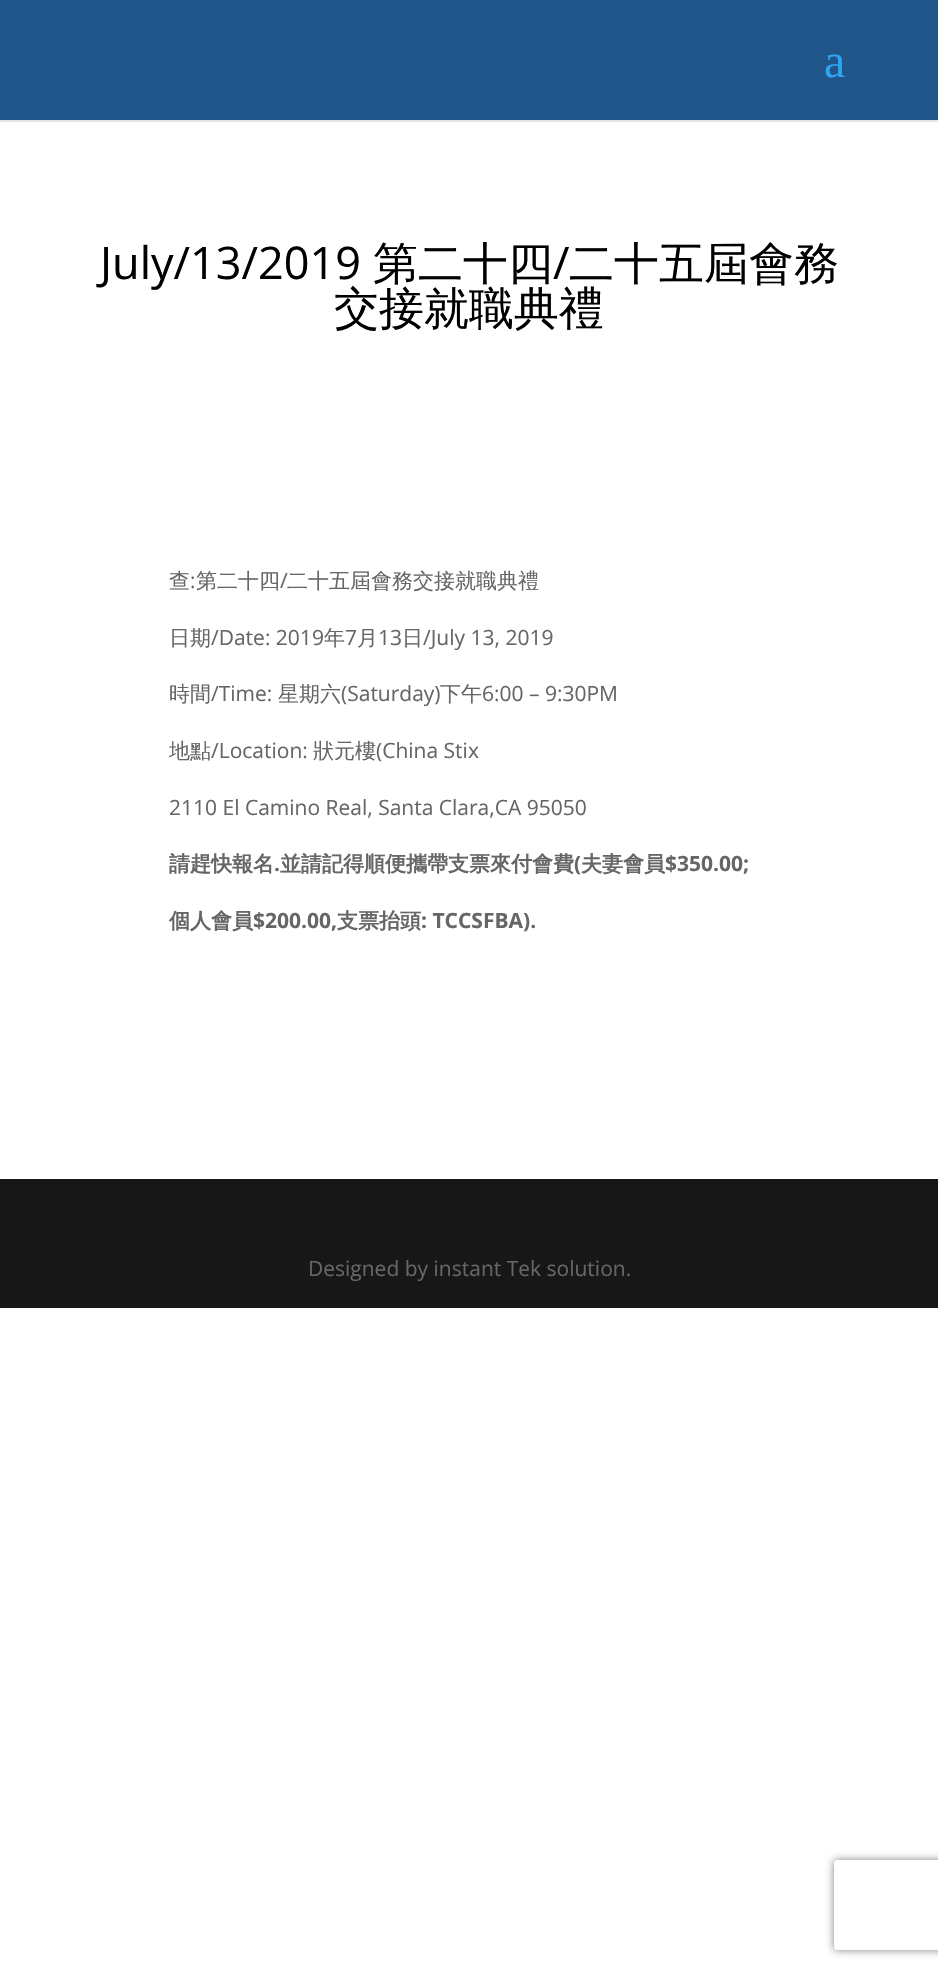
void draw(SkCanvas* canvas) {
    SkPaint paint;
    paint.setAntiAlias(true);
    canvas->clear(0xFFFFFFFF);
    paint.setColor(0xFFE6E6E6);
    canvas->drawRect(SkRect::MakeXYWH(0, 120, 938, 2), paint);
    paint.setColor(0xFF20558A);
    canvas->drawRect(SkRect::MakeXYWH(0, 0, 938, 120), paint);
    SkFont font1(fontMgr->matchFamilyStyle("Liberation Serif", SkFontStyle::Normal()), 48);
    font1.setSubpixel(true);
    paint.setColor(0xFF2EA3F2);
    canvas->drawString("a", 824, 77, font1, paint);
    SkFont font2(fontMgr->matchFamilyStyle("Open Sans", SkFontStyle::Normal()), 45);
    font2.setSubpixel(true);
    paint.setColor(0xFF000000);
    canvas->drawString("July/13/2019", 100, 279, font2, paint);
    SkFont font3(fontMgr->matchFamilyStyle("WenQuanYi Zen Hei", SkFontStyle(500, SkFontStyle::kNormal_Width, SkFontStyle::kUpright_Slant)), 45);
    font3.setSubpixel(true);
    canvas->drawString("第二十四", 373, 279, font3, paint);
    canvas->drawString("/", 553, 279, font2, paint);
    canvas->drawString("二十五屆會務", 569, 279, font3, paint);
    canvas->drawString("交接就職典禮", 334, 324, font3, paint);
    SkFont font4(fontMgr->matchFamilyStyle("WenQuanYi Zen Hei", SkFontStyle(500, SkFontStyle::kNormal_Width, SkFontStyle::kUpright_Slant)), 21);
    font4.setSubpixel(true);
    paint.setColor(0xFF666666);
    canvas->drawString("查", 169, 588, font4, paint);
    SkFont font5(fontMgr->matchFamilyStyle("Open Sans", SkFontStyle::Normal()), 21);
    font5.setSubpixel(true);
    canvas->drawString(":", 190, 588, font5, paint);
    canvas->drawString("第二十四", 196, 588, font4, paint);
    canvas->drawString("/", 280, 588, font5, paint);
    canvas->drawString("二十五屆會務交接就職典禮", 287, 588, font4, paint);
    canvas->drawString("日期", 169, 645, font4, paint);
    canvas->drawString("/Date: 2019", 211, 645, font5, paint);
    canvas->drawString("年", 324, 645, font4, paint);
    canvas->drawString("7", 345, 645, font5, paint);
    canvas->drawString("月", 357, 645, font4, paint);
    canvas->drawString("13", 378, 645, font5, paint);
    canvas->drawString("日", 402, 645, font4, paint);
    canvas->drawString("/July 13, 2019", 423, 645, font5, paint);
    canvas->drawString("時間", 169, 701, font4, paint);
    canvas->drawString("/Time:", 211, 701, font5, paint);
    canvas->drawString("星期六", 278, 701, font4, paint);
    canvas->drawString("(Saturday)", 341, 701, font5, paint);
    canvas->drawString("下午", 440, 701, font4, paint);
    canvas->drawString("6:00 – 9:30PM", 482, 701, font5, paint);
    canvas->drawString("地點", 169, 758, font4, paint);
    canvas->drawString("/Location:", 211, 758, font5, paint);
    canvas->drawString("狀元樓", 313, 758, font4, paint);
    canvas->drawString("(China Stix", 376, 758, font5, paint);
    canvas->drawString("2110 El Camino Real, Santa Clara,CA 95050", 169, 815, font5, paint);
    SkFont font6(fontMgr->matchFamilyStyle("WenQuanYi Zen Hei", SkFontStyle::Bold()), 21);
    font6.setSubpixel(true);
    canvas->drawString("請趕快報名", 169, 871, font6, paint);
    SkFont font7(fontMgr->matchFamilyStyle("Open Sans", SkFontStyle::Bold()), 21);
    font7.setSubpixel(true);
    canvas->drawString(".", 274, 871, font7, paint);
    canvas->drawString("並請記得順便攜帶支票來付會費", 280, 871, font6, paint);
    canvas->drawString("(", 574, 871, font7, paint);
    canvas->drawString("夫妻會員", 581, 871, font6, paint);
    canvas->drawString("$350.00;", 665, 871, font7, paint);
    canvas->drawString("個人會員", 169, 928, font6, paint);
    canvas->drawString("$200.00,", 253, 928, font7, paint);
    canvas->drawString("支票抬頭", 337, 928, font6, paint);
    canvas->drawString(": TCCSFBA).", 421, 928, font7, paint);
    paint.setColor(0xFF171717);
    canvas->drawRect(SkRect::MakeXYWH(0, 1179, 938, 129), paint);
    paint.setColor(0xFF666666);
    canvas->drawString("Designed by instant Tek solution.", 308, 1276, font5, paint);
    canvas->save();
    canvas->clipPath(SkPathBuilder(SkPathFillType::kEvenOdd).moveTo(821, 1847).lineTo(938, 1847).lineTo(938, 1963).lineTo(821, 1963).close().moveTo(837, 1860).lineTo(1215, 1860).cubicTo(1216.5f, 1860, 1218, 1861.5f, 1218, 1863).lineTo(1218, 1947).cubicTo(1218, 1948.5f, 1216.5f, 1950, 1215, 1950).lineTo(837, 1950).cubicTo(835.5f, 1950, 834, 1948.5f, 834, 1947).lineTo(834, 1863).cubicTo(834, 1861.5f, 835.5f, 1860, 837, 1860).close().detach(), true);
    paint.setColor(0xFF808080);
    paint.setMaskFilter(SkMaskFilter::MakeBlur(kNormal_SkBlurStyle, 4));
    canvas->drawRoundRect(SkRect::MakeXYWH(834, 1860, 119, 90), 3, 3, paint);
    paint.setMaskFilter(nullptr);
    canvas->restore();
}
